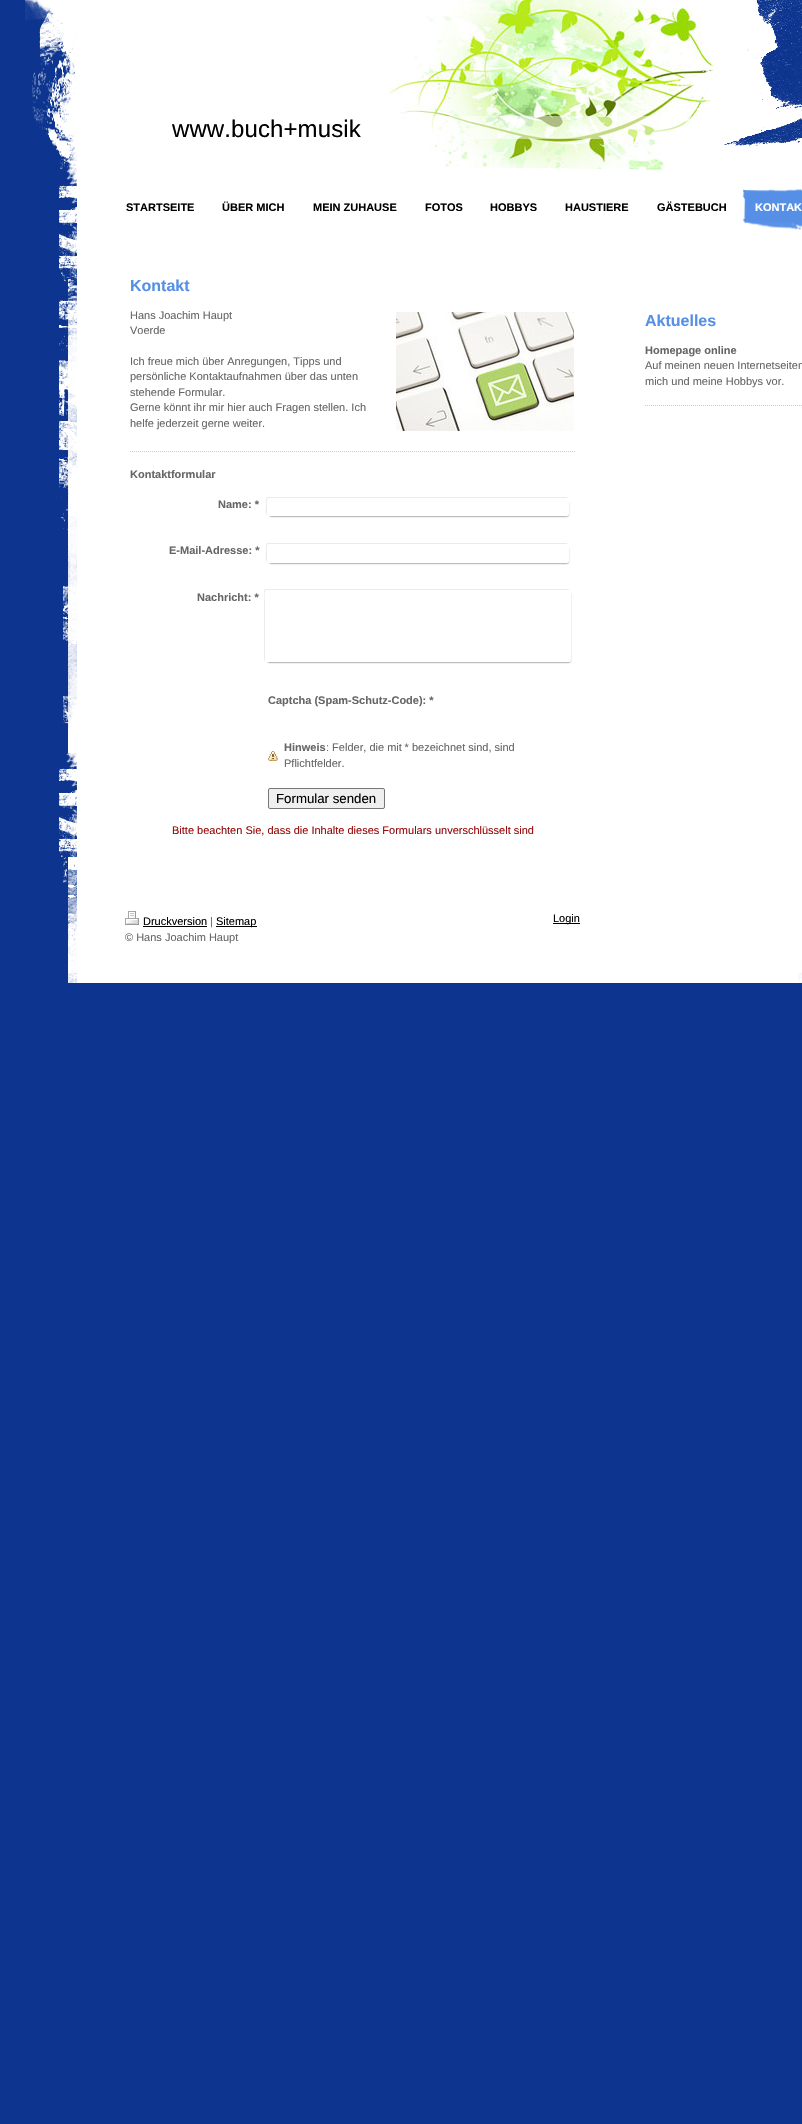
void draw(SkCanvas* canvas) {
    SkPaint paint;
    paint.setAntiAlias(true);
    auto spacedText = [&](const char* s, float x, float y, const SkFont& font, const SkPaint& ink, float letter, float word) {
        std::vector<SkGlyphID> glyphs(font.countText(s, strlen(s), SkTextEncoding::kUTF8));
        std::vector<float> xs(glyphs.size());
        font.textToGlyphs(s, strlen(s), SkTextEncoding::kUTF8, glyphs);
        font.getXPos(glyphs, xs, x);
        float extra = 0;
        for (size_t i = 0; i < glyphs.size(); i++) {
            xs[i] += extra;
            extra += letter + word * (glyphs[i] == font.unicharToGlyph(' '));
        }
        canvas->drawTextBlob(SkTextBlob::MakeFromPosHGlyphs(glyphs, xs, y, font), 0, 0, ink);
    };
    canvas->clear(0xFF0D358F);
    canvas->drawImageRect(SkImages::DeferredFromEncodedData(SkData::MakeFromFileName("img3.png")), SkRect::MakeXYWH(125, 0, 590, 170), SkSamplingOptions());
    canvas->drawImageRect(SkImages::DeferredFromEncodedData(SkData::MakeFromFileName("img1.png")), SkRect::MakeXYWH(25, 0, 777, 27), SkSamplingOptions());
    canvas->drawImageRect(SkImages::DeferredFromEncodedData(SkData::MakeFromFileName("img2.png")), SkRect::MakeXYWH(32, 27, 93, 129), SkSamplingOptions());
    SkFont font1(fontMgr->matchFamilyStyle("Liberation Sans", SkFontStyle::Normal()), 24);
    font1.setSubpixel(true);
    paint.setColor(0xFF000000);
    spacedText("www.buch+musik", 172, 137, font1, paint, 0.1f, 0);
    canvas->drawImageRect(SkImages::DeferredFromEncodedData(SkData::MakeFromFileName("img4.png")), SkRect::MakeXYWH(662, 27, 140, 129), SkSamplingOptions());
    paint.setColor(0x80FFFFFF);
    canvas->drawRect(SkRect::MakeXYWH(421, 116, 280, 23), paint);
    canvas->drawImageRect(SkImages::DeferredFromEncodedData(SkData::MakeFromFileName("img5.png")), SkRect::MakeXYWH(59, 156, 743, 14), SkSamplingOptions());
    canvas->drawImageRect(SkImages::DeferredFromEncodedData(SkData::MakeFromFileName("img6.png")), SkRect::MakeXYWH(59, 170, 743, 687), SkSamplingOptions());
    SkFont font2(fontMgr->matchFamilyStyle("Liberation Sans", SkFontStyle::Bold()), 11);
    font2.setSubpixel(true);
    paint.setColor(0xFF000000);
    canvas->drawString("STARTSEITE", 126, 211, font2, paint);
    canvas->drawString("ÜBER MICH", 222, 211, font2, paint);
    canvas->drawString("MEIN ZUHAUSE", 313, 211, font2, paint);
    canvas->drawString("FOTOS", 425, 211, font2, paint);
    canvas->drawString("HOBBYS", 490, 211, font2, paint);
    canvas->drawString("HAUSTIERE", 565, 211, font2, paint);
    canvas->drawString("GÄSTEBUCH", 657, 211, font2, paint);
    paint.setColor(0xFF568FE6);
    canvas->drawRect(SkRect::MakeXYWH(741, 185, 61, 45), paint);
    canvas->drawImageRect(SkImages::DeferredFromEncodedData(SkData::MakeFromFileName("img7.png")), SkRect::MakeXYWH(741, 185, 61, 45), SkSamplingOptions());
    paint.setColor(0xFFFFFFFF);
    canvas->drawString("KONTAK", 755, 211, font2, paint);
    SkFont font3(fontMgr->matchFamilyStyle("Liberation Sans", SkFontStyle::Bold()), 16);
    font3.setSubpixel(true);
    paint.setColor(0xFF568FE6);
    canvas->drawString("Kontakt", 130, 291, font3, paint);
    SkFont font4(fontMgr->matchFamilyStyle("Liberation Sans", SkFontStyle::Normal()), 11);
    font4.setSubpixel(true);
    paint.setColor(0xFF666666);
    canvas->drawString("Hans Joachim Haupt", 130, 319, font4, paint);
    canvas->drawString("Voerde", 130, 334, font4, paint);
    canvas->drawString("Ich freue mich über Anregungen, Tipps und", 130, 365, font4, paint);
    canvas->drawString("persönliche Kontaktaufnahmen über das unten", 130, 380, font4, paint);
    canvas->drawString("stehende Formular.", 130, 396, font4, paint);
    canvas->drawString("Gerne könnt ihr mir hier auch Fragen stellen. Ich", 130, 411, font4, paint);
    canvas->drawString("helfe jederzeit gerne weiter.", 130, 427, font4, paint);
    canvas->drawImageRect(SkImages::DeferredFromEncodedData(SkData::MakeFromFileName("img8.png")), SkRect::MakeXYWH(396, 312, 178, 119), SkSamplingOptions());
    paint.setStyle(SkPaint::kStroke_Style);
    paint.setStrokeWidth(1);
    paint.setColor(0xFFCCCCCC);
    paint.setPathEffect(SkDashPathEffect::Make({{1, 1}}, 0));
    canvas->drawPath(SkPathBuilder().moveTo(130, 451.5f).lineTo(575, 451.5f).detach(), paint);
    paint.setPathEffect(nullptr);
    paint.setStyle(SkPaint::kFill_Style);
    paint.setColor(0xFF666666);
    canvas->drawString("Kontaktformular", 130, 478, font2, paint);
    paint.setColor(0xFFEBEBEB);
    canvas->drawPath(SkPathBuilder().moveTo(268, 497).cubicTo(265, 497, 266, 504, 266, 506).cubicTo(266, 508, 265, 514, 267, 515).lineTo(267, 507).cubicTo(267, 505, 266, 498, 269, 498).lineTo(568, 498).lineTo(566, 497).close().detach(), paint);
    paint.setColor(0xCC000000);
    paint.setMaskFilter(SkMaskFilter::MakeBlur(kNormal_SkBlurStyle, 1));
    canvas->drawRect(SkRect::MakeXYWH(270, 502, 298, 14), paint);
    paint.setMaskFilter(nullptr);
    paint.setColor(0xFF666666);
    canvas->drawString("Name: *", 218, 508, font2, paint);
    paint.setColor(0xFFFFFFFF);
    canvas->drawRoundRect(SkRect::MakeXYWH(267, 498, 302, 18), 2, 2, paint);
    paint.setColor(0xFFEBEBEB);
    canvas->drawPath(SkPathBuilder().moveTo(268, 543).cubicTo(265, 543, 266, 551, 266, 552).cubicTo(266, 554, 265, 561, 267, 562).lineTo(267, 554).cubicTo(267, 552, 266, 544, 269, 544).lineTo(568, 544).lineTo(566, 543).close().detach(), paint);
    paint.setColor(0xCC000000);
    paint.setMaskFilter(SkMaskFilter::MakeBlur(kNormal_SkBlurStyle, 1));
    canvas->drawRect(SkRect::MakeXYWH(270, 548, 298, 15), paint);
    paint.setMaskFilter(nullptr);
    paint.setColor(0xFF666666);
    canvas->drawString("E-Mail-Adresse: *", 169, 554, font2, paint);
    paint.setColor(0xFFFFFFFF);
    canvas->drawRoundRect(SkRect::MakeXYWH(267, 544, 302, 19), 2, 2, paint);
    paint.setColor(0xFFEBEBEB);
    canvas->drawPath(SkPathBuilder().moveTo(266, 589).lineTo(264, 590).lineTo(264, 660).lineTo(265, 661).lineTo(265, 603).cubicTo(265, 599, 263, 590, 267, 590).lineTo(570, 590).lineTo(568, 589).close().detach(), paint);
    paint.setColor(0xCC000000);
    paint.setMaskFilter(SkMaskFilter::MakeBlur(kNormal_SkBlurStyle, 1));
    canvas->drawRect(SkRect::MakeXYWH(268, 594, 302, 68), paint);
    paint.setMaskFilter(nullptr);
    paint.setColor(0xFF666666);
    canvas->drawString("Nachricht: *", 197, 601, font2, paint);
    paint.setColor(0xFFFFFFFF);
    canvas->drawRoundRect(SkRect::MakeXYWH(265, 590, 306, 72), 2, 2, paint);
    paint.setColor(0xFF666666);
    canvas->drawString("Captcha (Spam-Schutz-Code): *", 268, 704, font2, paint);
    canvas->drawImageRect(SkImages::DeferredFromEncodedData(SkData::MakeFromFileName("img9.png")), SkRect::MakeXYWH(268, 751, 10, 10), SkSamplingOptions());
    canvas->drawString("Hinweis", 284, 751, font2, paint);
    canvas->drawString(": Felder, die mit", 326, 751, font4, paint);
    SkFont font5(fontMgr->matchFamilyStyle("Liberation Sans", SkFontStyle::Italic()), 11);
    font5.setSubpixel(true);
    canvas->drawString("*", 404, 751, font5, paint);
    canvas->drawString("bezeichnet sind, sind", 412, 751, font4, paint);
    canvas->drawString("Pflichtfelder.", 284, 767, font4, paint);
    paint.setColor(0xFFEFEFEF);
    canvas->drawRoundRect(SkRect::MakeXYWH(268.5f, 788.5f, 116, 20), 1.5f, 1.5f, paint);
    paint.setStyle(SkPaint::kStroke_Style);
    paint.setColor(0xFF767676);
    canvas->drawRoundRect(SkRect::MakeXYWH(268.5f, 788.5f, 116, 20), 1.5f, 1.5f, paint);
    SkFont font6(fontMgr->matchFamilyStyle("Liberation Sans", SkFontStyle::Normal()), 13.25f);
    font6.setSubpixel(true);
    paint.setStyle(SkPaint::kFill_Style);
    paint.setColor(0xFF000000);
    canvas->drawString("Formular senden", 276, 803, font6, paint);
    paint.setColor(0xFF960A0A);
    canvas->drawString("Bitte beachten Sie, dass die Inhalte dieses Formulars unverschlüsselt sind", 172, 834, font4, paint);
    paint.setColor(0xFF568FE6);
    canvas->drawString("Aktuelles", 645, 326, font3, paint);
    paint.setColor(0xFF666666);
    canvas->drawString("Homepage online", 645, 354, font2, paint);
    canvas->drawString("Auf meinen neuen Internetseiten", 645, 369, font4, paint);
    canvas->drawString("mich und meine Hobbys vor.", 645, 385, font4, paint);
    paint.setStyle(SkPaint::kStroke_Style);
    paint.setColor(0xFFCCCCCC);
    paint.setPathEffect(SkDashPathEffect::Make({{1, 1}}, 0));
    canvas->drawPath(SkPathBuilder().moveTo(645, 405.5f).lineTo(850, 405.5f).detach(), paint);
    paint.setPathEffect(nullptr);
    canvas->drawImageRect(SkImages::DeferredFromEncodedData(SkData::MakeFromFileName("img10.png")), SkRect::MakeXYWH(63, 857, 739, 126), SkSamplingOptions());
    canvas->drawImageRect(SkImages::DeferredFromEncodedData(SkData::MakeFromFileName("img11.png")), SkRect::MakeXYWH(125, 911, 14, 14), SkSamplingOptions());
    paint.setStyle(SkPaint::kFill_Style);
    paint.setColor(0xFF000000);
    canvas->drawString("Druckversion", 143, 925, font4, paint);
    canvas->drawRect(SkRect::MakeXYWH(143, 926, 64, 1), paint);
    paint.setColor(0xFF666666);
    canvas->drawString("|", 210, 925, font4, paint);
    paint.setColor(0xFF000000);
    canvas->drawRect(SkRect::MakeXYWH(216, 926, 41, 1), paint);
    canvas->drawString("Sitemap", 216, 925, font4, paint);
    paint.setColor(0xFF666666);
    canvas->drawString("© Hans Joachim Haupt", 125, 941, font4, paint);
    paint.setColor(0xFF000000);
    canvas->drawRect(SkRect::MakeXYWH(553, 923, 27, 1), paint);
    canvas->drawString("Login", 553, 922, font4, paint);
}
